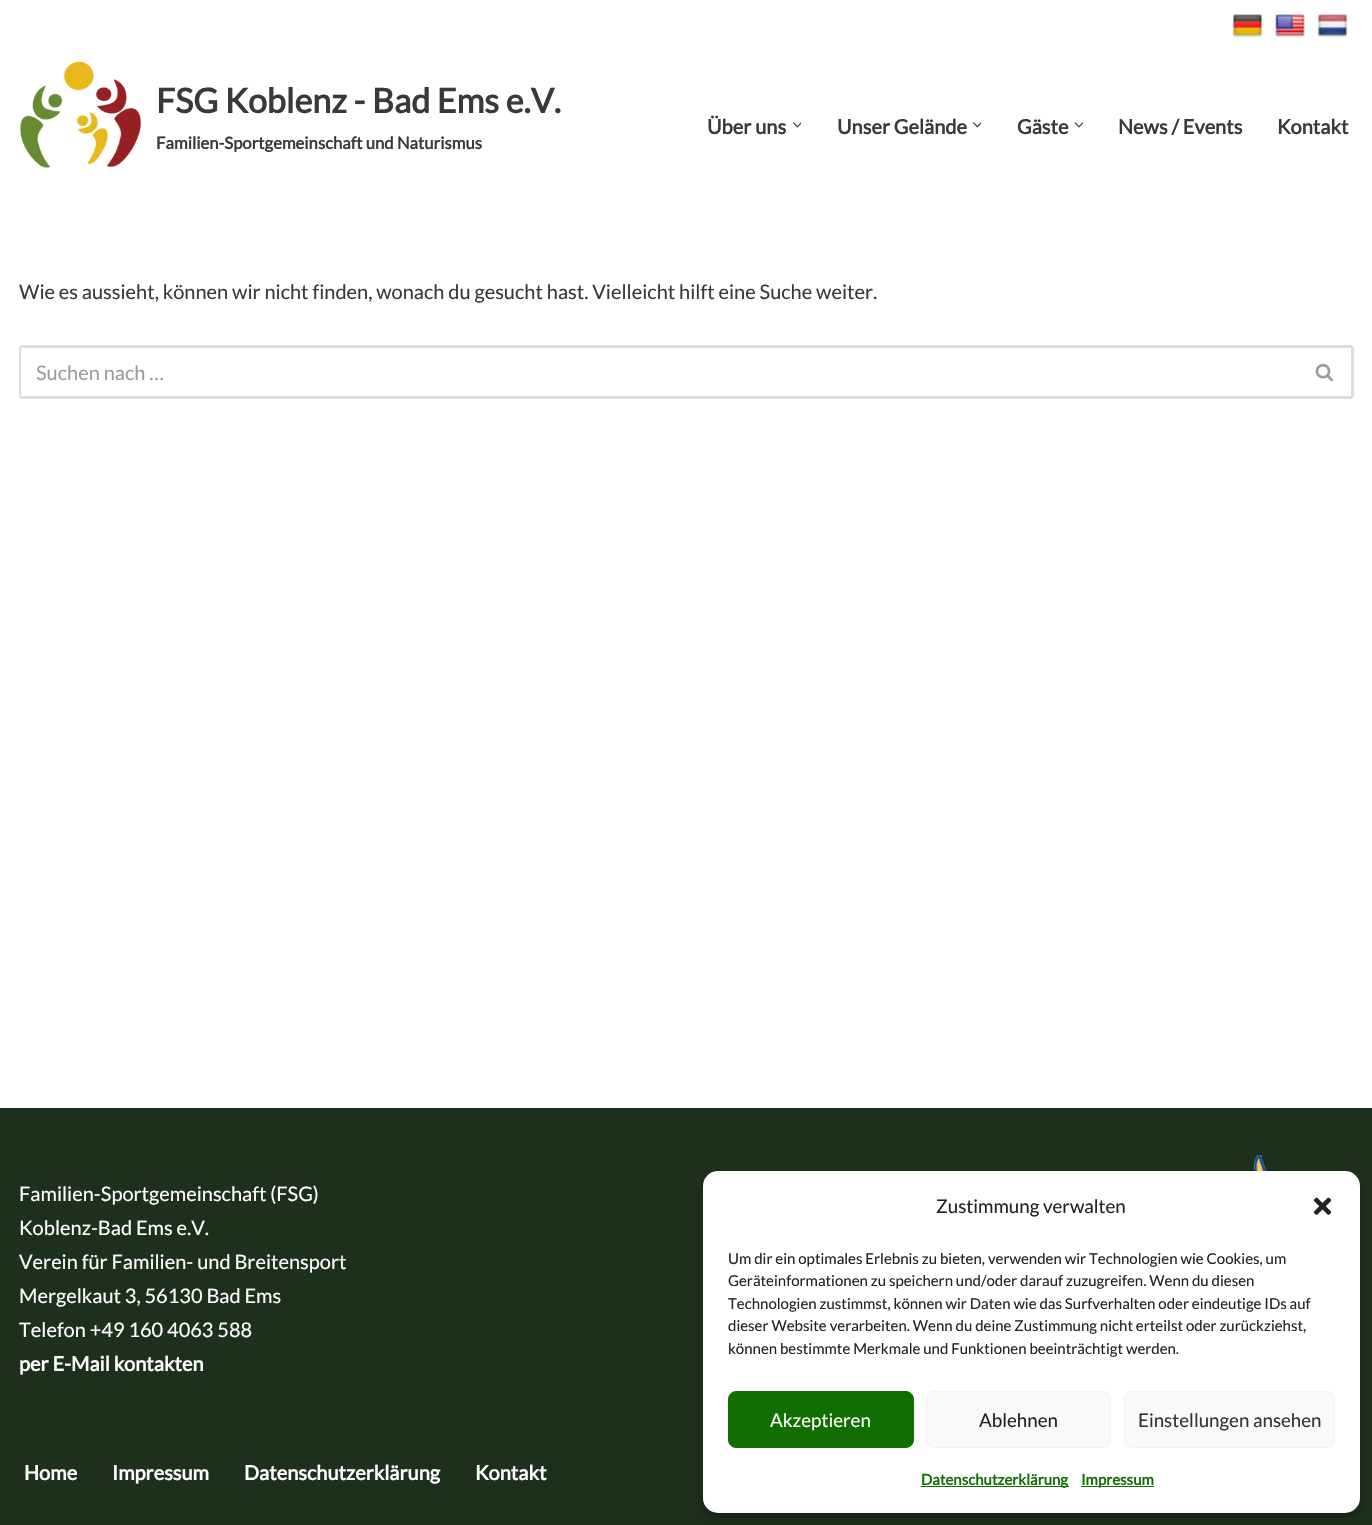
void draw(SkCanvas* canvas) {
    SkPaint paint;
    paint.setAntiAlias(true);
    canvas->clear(0xFFFFFFFF);
    canvas->drawImageRect(SkImages::DeferredFromEncodedData(SkData::MakeFromFileName("img1.png")), SkRect::MakeXYWH(1232, 14, 31, 24), SkSamplingOptions());
    canvas->drawImageRect(SkImages::DeferredFromEncodedData(SkData::MakeFromFileName("img2.png")), SkRect::MakeXYWH(1275, 14, 30, 24), SkSamplingOptions());
    canvas->drawImageRect(SkImages::DeferredFromEncodedData(SkData::MakeFromFileName("img3.png")), SkRect::MakeXYWH(1317, 14, 31, 24), SkSamplingOptions());
    canvas->drawImageRect(SkImages::DeferredFromEncodedData(SkData::MakeFromFileName("img4.png")), SkRect::MakeXYWH(20, 61, 121, 107), SkSamplingOptions());
    SkFont font1(fontMgr->matchFamilyStyle("Lato", SkFontStyle::Bold()), 34);
    font1.setSubpixel(true);
    paint.setColor(0xFF393939);
    canvas->drawString("FSG Koblenz - Bad Ems e.V.", 156, 113, font1, paint);
    SkFont font2(fontMgr->matchFamilyStyle("Lato", SkFontStyle::Bold()), 16.7f);
    font2.setSubpixel(true);
    canvas->drawString("Familien-Sportgemeinschaft und Naturismus", 156, 149, font2, paint);
    SkFont font3(fontMgr->matchFamilyStyle("Lato", SkFontStyle::Bold()), 20);
    font3.setSubpixel(true);
    canvas->drawString("Über uns", 707, 134, font3, paint);
    canvas->drawImageRect(SkImages::DeferredFromEncodedData(SkData::MakeFromFileName("img5.png")), SkRect::MakeXYWH(793, 122, 8, 6), SkSamplingOptions());
    canvas->drawString("Unser Gelände", 837, 134, font3, paint);
    canvas->drawImageRect(SkImages::DeferredFromEncodedData(SkData::MakeFromFileName("img5.png")), SkRect::MakeXYWH(973, 122, 8, 6), SkSamplingOptions());
    canvas->drawString("Gäste", 1017, 134, font3, paint);
    canvas->drawImageRect(SkImages::DeferredFromEncodedData(SkData::MakeFromFileName("img6.png")), SkRect::MakeXYWH(1074, 122, 9, 6), SkSamplingOptions());
    canvas->drawString("News / Events", 1118, 134, font3, paint);
    canvas->drawString("Kontakt", 1277, 134, font3, paint);
    SkFont font4(fontMgr->matchFamilyStyle("Lato", SkFontStyle::Normal()), 20);
    font4.setSubpixel(true);
    canvas->drawString("Wie es aussieht, können wir nicht finden, wonach du gesucht hast. Vielleicht hilft eine Suche weiter.", 19, 299, font4, paint);
    paint.setColor(0xFFDDDDDD);
    canvas->drawPath(SkPathBuilder(SkPathFillType::kEvenOdd).moveTo(22, 345).lineTo(1298, 345).lineTo(1298, 399).lineTo(22, 399).cubicTo(20, 399, 19, 397, 19, 395).lineTo(19, 349).cubicTo(19, 347, 20, 345, 22, 345).close().moveTo(22, 348).lineTo(1298, 348).lineTo(1298, 396).lineTo(22, 396).cubicTo(22, 396, 21, 396, 21, 395).lineTo(21, 349).cubicTo(21, 348, 22, 348, 22, 348).close().detach(), paint);
    paint.setColor(0xFF9C9C9C);
    canvas->drawString("Suchen nach …", 36, 380, font4, paint);
    paint.setColor(0xFFDDDDDD);
    canvas->drawPath(SkPathBuilder(SkPathFillType::kEvenOdd).moveTo(1298, 345).lineTo(1350, 345).cubicTo(1352, 345, 1354, 347, 1354, 349).lineTo(1354, 395).cubicTo(1354, 397, 1352, 399, 1350, 399).lineTo(1298, 399).close().moveTo(1298, 348).lineTo(1350, 348).cubicTo(1351, 348, 1351, 348, 1351, 349).lineTo(1351, 395).cubicTo(1351, 396, 1351, 396, 1350, 396).lineTo(1298, 396).close().detach(), paint);
    canvas->drawImageRect(SkImages::DeferredFromEncodedData(SkData::MakeFromFileName("img7.png")), SkRect::MakeXYWH(1315, 363, 18, 18), SkSamplingOptions());
    paint.setColor(0xFF1C301C);
    canvas->drawRect(SkRect::MakeXYWH(0, 1108, 1372, 417), paint);
    canvas->drawImageRect(SkImages::DeferredFromEncodedData(SkData::MakeFromFileName("img8.png")), SkRect::MakeXYWH(1254, 1155, 12, 16), SkSamplingOptions());
    paint.setColor(0xFFFFFFFF);
    canvas->drawString("Familien-Sportgemeinschaft (FSG)", 19, 1201, font4, paint);
    canvas->drawString("Koblenz-Bad Ems e.V.", 19, 1235, font4, paint);
    canvas->drawString("Verein für Familien- und Breitensport", 19, 1269, font4, paint);
    canvas->drawString("Mergelkaut 3, 56130 Bad Ems", 19, 1303, font4, paint);
    canvas->drawString("Telefon +49 160 4063 588", 19, 1337, font4, paint);
    canvas->drawString("per E-Mail kontakten", 19, 1371, font3, paint);
    canvas->drawString("Home", 24, 1480, font3, paint);
    canvas->drawString("Impressum", 112, 1480, font3, paint);
    canvas->drawString("Datenschutzerklärung", 244, 1480, font3, paint);
    canvas->drawString("Kontakt", 475, 1480, font3, paint);
    paint.setColor(0x3B000000);
    paint.setMaskFilter(SkMaskFilter::MakeBlur(kNormal_SkBlurStyle, 4));
    canvas->drawRoundRect(SkRect::MakeXYWH(703, 1179, 657, 341), 15, 15, paint);
    paint.setMaskFilter(nullptr);
    paint.setColor(0xFFFFFFFF);
    canvas->drawRoundRect(SkRect::MakeXYWH(703, 1171, 657, 342), 15, 15, paint);
    SkFont font5(fontMgr->matchFamilyStyle("Lato", SkFontStyle::Normal()), 18.75f);
    font5.setSubpixel(true);
    paint.setColor(0xFF222222);
    canvas->drawString("Zustimmung verwalten", 936, 1213, font5, paint);
    canvas->drawImageRect(SkImages::DeferredFromEncodedData(SkData::MakeFromFileName("img9.png")), SkRect::MakeXYWH(1313, 1197, 19, 18), SkSamplingOptions());
    SkFont font6(fontMgr->matchFamilyStyle("Lato", SkFontStyle::Normal()), 15);
    font6.setSubpixel(true);
    canvas->drawString("Um dir ein optimales Erlebnis zu bieten, verwenden wir Technologien wie Cookies, um", 728, 1264, font6, paint);
    canvas->drawString("Geräteinformationen zu speichern und/oder darauf zuzugreifen. Wenn du diesen", 728, 1286, font6, paint);
    canvas->drawString("Technologien zustimmst, können wir Daten wie das Surfverhalten oder eindeutige IDs auf", 728, 1309, font6, paint);
    canvas->drawString("dieser Website verarbeiten. Wenn du deine Zustimmung nicht erteilst oder zurückziehst,", 728, 1331, font6, paint);
    canvas->drawString("können bestimmte Merkmale und Funktionen beeinträchtigt werden.", 728, 1354, font6, paint);
    paint.setColor(0xFF106F00);
    canvas->drawRoundRect(SkRect::MakeXYWH(728.5f, 1391.5f, 185, 56), 7.5f, 7.5f, paint);
    paint.setStyle(SkPaint::kStroke_Style);
    paint.setStrokeWidth(1);
    canvas->drawRoundRect(SkRect::MakeXYWH(728.5f, 1391.5f, 185, 56), 7.5f, 7.5f, paint);
    paint.setStyle(SkPaint::kFill_Style);
    paint.setColor(0xFFFFFFFF);
    canvas->drawString("Akzeptieren", 770, 1427, font5, paint);
    paint.setColor(0xFFF9F9F9);
    canvas->drawRoundRect(SkRect::MakeXYWH(926.5f, 1391.5f, 184, 56), 7.5f, 7.5f, paint);
    paint.setStyle(SkPaint::kStroke_Style);
    paint.setColor(0xFFF2F2F2);
    canvas->drawRoundRect(SkRect::MakeXYWH(926.5f, 1391.5f, 184, 56), 7.5f, 7.5f, paint);
    paint.setStyle(SkPaint::kFill_Style);
    paint.setColor(0xFF222222);
    canvas->drawString("Ablehnen", 979, 1427, font5, paint);
    paint.setColor(0xFFF9F9F9);
    canvas->drawRoundRect(SkRect::MakeXYWH(1124.5f, 1391.5f, 210, 56), 7.5f, 7.5f, paint);
    paint.setStyle(SkPaint::kStroke_Style);
    paint.setColor(0xFFF2F2F2);
    canvas->drawRoundRect(SkRect::MakeXYWH(1124.5f, 1391.5f, 210, 56), 7.5f, 7.5f, paint);
    paint.setStyle(SkPaint::kFill_Style);
    paint.setColor(0xFF333333);
    canvas->drawString("Einstellungen ansehen", 1138, 1427, font5, paint);
    paint.setColor(0xFF106F00);
    canvas->drawRect(SkRect::MakeXYWH(921, 1486, 148, 1), paint);
    SkFont font7(fontMgr->matchFamilyStyle("Lato", SkFontStyle::Bold()), 15);
    font7.setSubpixel(true);
    canvas->drawString("Datenschutzerklärung", 921, 1485, font7, paint);
    canvas->drawRect(SkRect::MakeXYWH(1081, 1486, 73, 1), paint);
    canvas->drawString("Impressum", 1081, 1485, font7, paint);
}
